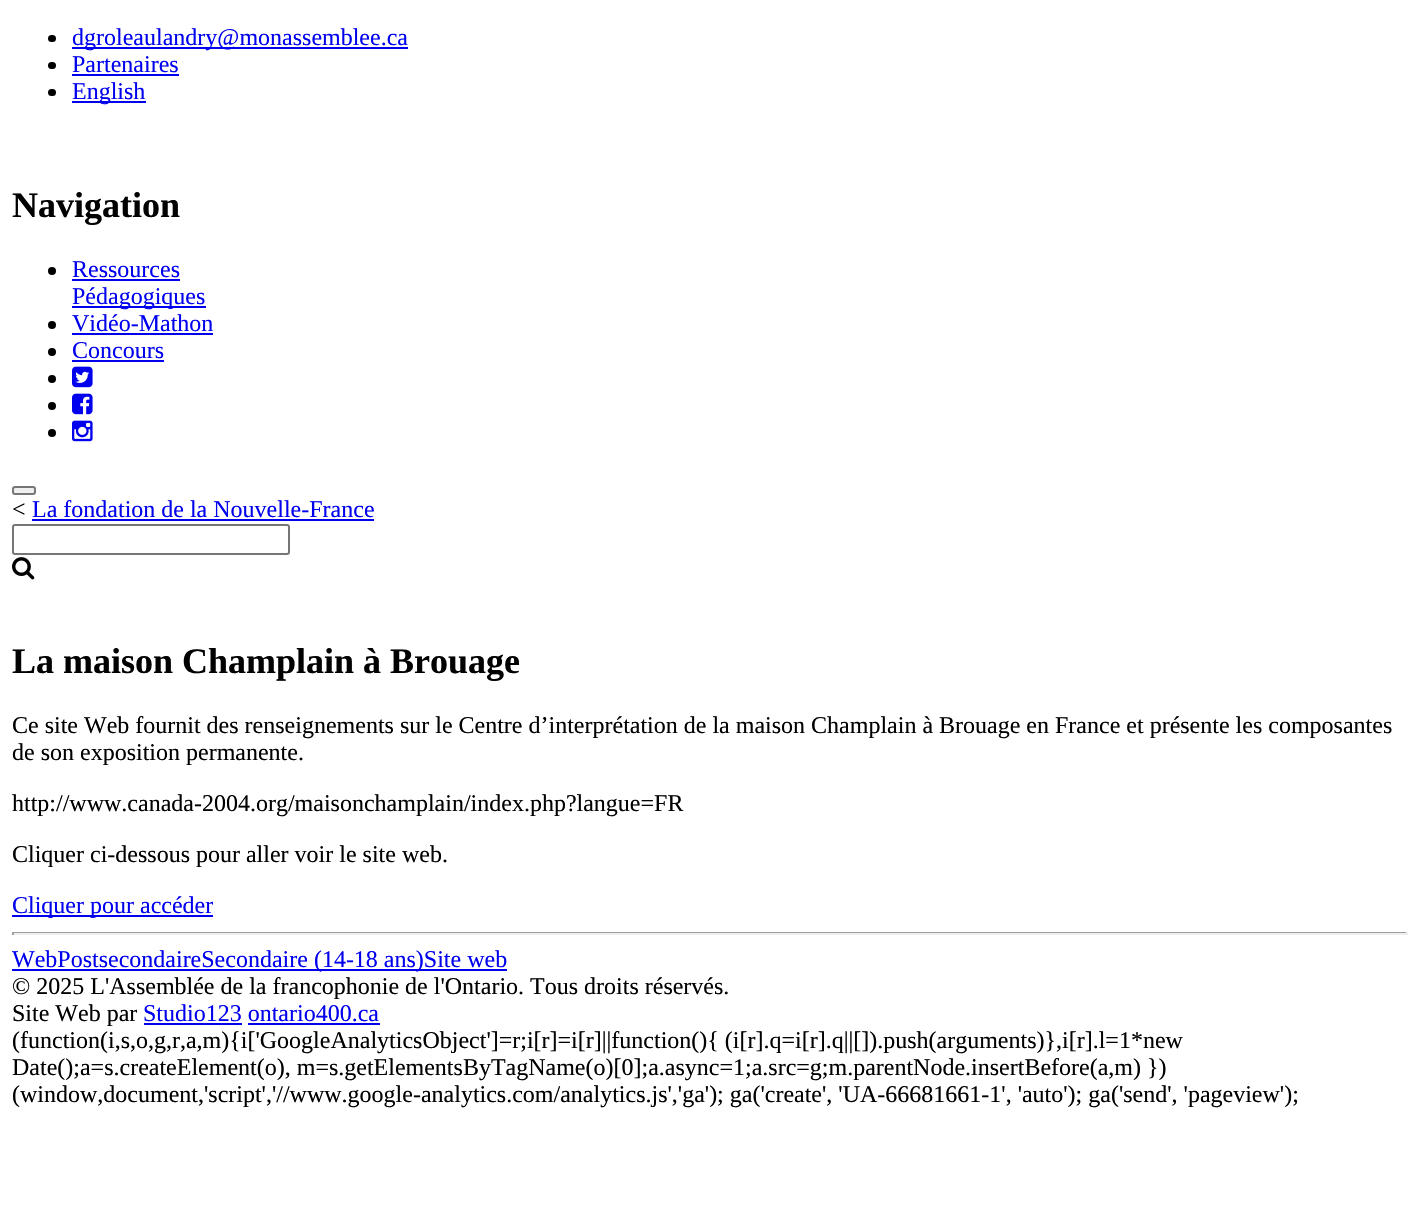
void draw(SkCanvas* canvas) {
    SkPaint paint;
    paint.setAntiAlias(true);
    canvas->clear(0xFFFFFFFF);
    paint.setColor(0xFF000000);
    canvas->drawRoundRect(SkRect::MakeXYWH(48, 35, 8, 7), 3.5f, 3.5f, paint);
    paint.setColor(0xFF0000EE);
    canvas->drawRect(SkRect::MakeXYWH(72, 47, 336, 2), paint);
    SkFont font1(fontMgr->matchFamilyStyle("Liberation Serif", SkFontStyle::Normal()), 24);
    font1.setSubpixel(true);
    canvas->drawString("dgroleaulandry@monassemblee.ca", 72, 45, font1, paint);
    paint.setColor(0xFF000000);
    canvas->drawRoundRect(SkRect::MakeXYWH(48, 62, 8, 7), 3.5f, 3.5f, paint);
    paint.setColor(0xFF0000EE);
    canvas->drawString("Partenaires", 72, 72, font1, paint);
    canvas->drawRect(SkRect::MakeXYWH(72, 74, 107, 2), paint);
    paint.setColor(0xFF000000);
    canvas->drawRoundRect(SkRect::MakeXYWH(48, 89, 8, 7), 3.5f, 3.5f, paint);
    paint.setColor(0xFF0000EE);
    canvas->drawRect(SkRect::MakeXYWH(72, 101, 74, 2), paint);
    canvas->drawString("English", 72, 99, font1, paint);
    SkFont font2(fontMgr->matchFamilyStyle("Liberation Serif", SkFontStyle::Bold()), 36);
    font2.setSubpixel(true);
    paint.setColor(0xFF000000);
    canvas->drawString("Navigation", 12, 217, font2, paint);
    canvas->drawCircle(52, 271, 4, paint);
    paint.setColor(0xFF0000EE);
    canvas->drawString("Ressources", 72, 277, font1, paint);
    canvas->drawRect(SkRect::MakeXYWH(72, 279, 108, 2), paint);
    canvas->drawRect(SkRect::MakeXYWH(72, 306, 134, 2), paint);
    canvas->drawString("Pédagogiques", 72, 304, font1, paint);
    paint.setColor(0xFF000000);
    canvas->drawCircle(52, 325, 4, paint);
    paint.setColor(0xFF0000EE);
    canvas->drawString("Vidéo-Mathon", 72, 331, font1, paint);
    canvas->drawRect(SkRect::MakeXYWH(72, 333, 141, 2), paint);
    paint.setColor(0xFF000000);
    canvas->drawCircle(52, 352, 4, paint);
    paint.setColor(0xFF0000EE);
    canvas->drawString("Concours", 72, 358, font1, paint);
    canvas->drawRect(SkRect::MakeXYWH(72, 360, 92, 2), paint);
    paint.setColor(0xFF000000);
    canvas->drawCircle(52, 379, 4, paint);
    canvas->drawImageRect(SkImages::DeferredFromEncodedData(SkData::MakeFromFileName("img1.png")), SkRect::MakeXYWH(72, 366, 21, 22), SkSamplingOptions());
    canvas->drawCircle(52, 406, 4, paint);
    canvas->drawImageRect(SkImages::DeferredFromEncodedData(SkData::MakeFromFileName("img2.png")), SkRect::MakeXYWH(72, 393, 21, 22), SkSamplingOptions());
    canvas->drawCircle(52, 433, 4, paint);
    canvas->drawImageRect(SkImages::DeferredFromEncodedData(SkData::MakeFromFileName("img3.png")), SkRect::MakeXYWH(72, 420, 21, 22), SkSamplingOptions());
    paint.setColor(0xFFEFEFEF);
    canvas->drawRoundRect(SkRect::MakeXYWH(13, 487, 22, 7), 2, 2, paint);
    paint.setStyle(SkPaint::kStroke_Style);
    paint.setStrokeWidth(2);
    paint.setColor(0xFF767676);
    canvas->drawRoundRect(SkRect::MakeXYWH(13, 487, 22, 7), 2, 2, paint);
    paint.setStyle(SkPaint::kFill_Style);
    paint.setColor(0xFF000000);
    canvas->drawString("<", 12, 517, font1, paint);
    paint.setColor(0xFF0000EE);
    canvas->drawString("La fondation de la Nouvelle-France", 32, 517, font1, paint);
    canvas->drawRect(SkRect::MakeXYWH(32, 519, 342, 2), paint);
    paint.setStyle(SkPaint::kStroke_Style);
    paint.setColor(0xFF767676);
    canvas->drawRoundRect(SkRect::MakeXYWH(13, 525, 276, 29), 2, 2, paint);
    canvas->drawImageRect(SkImages::DeferredFromEncodedData(SkData::MakeFromFileName("img4.png")), SkRect::MakeXYWH(12, 557, 23, 23), SkSamplingOptions());
    paint.setStyle(SkPaint::kFill_Style);
    paint.setColor(0xFF000000);
    canvas->drawString("La maison Champlain à Brouage", 12, 673, font2, paint);
    canvas->drawString("Ce site Web fournit des renseignements sur le Centre d’interprétation de la maison Champlain à Brouage en France et présente les composantes", 12, 733, font1, paint);
    canvas->drawString("de son exposition permanente.", 12, 760, font1, paint);
    canvas->drawString("http://www.canada-2004.org/maisonchamplain/index.php?langue=FR", 12, 811, font1, paint);
    canvas->drawString("Cliquer ci-dessous pour aller voir le site web.", 12, 862, font1, paint);
    paint.setColor(0xFF0000EE);
    canvas->drawRect(SkRect::MakeXYWH(12, 915, 201, 2), paint);
    canvas->drawString("Cliquer pour accéder", 12, 913, font1, paint);
    paint.setColor(0xFF9F9F9F);
    canvas->drawRect(SkRect::MakeXYWH(12, 932, 1395, 1), paint);
    paint.setColor(0xFFEEEEEE);
    canvas->drawRect(SkRect::MakeXYWH(1406, 932, 2, 3), paint);
    canvas->drawRect(SkRect::MakeXYWH(12, 933, 1395, 2), paint);
    paint.setColor(0xFF9F9F9F);
    canvas->drawRect(SkRect::MakeXYWH(12, 932, 2, 3), paint);
    paint.setColor(0xFF0000EE);
    canvas->drawRect(SkRect::MakeXYWH(12, 969, 495, 2), paint);
    canvas->drawString("WebPostsecondaireSecondaire (14-18 ans)Site web", 12, 967, font1, paint);
    paint.setColor(0xFF000000);
    canvas->drawString("© 2025 L'Assemblée de la francophonie de l'Ontario. Tous droits réservés.", 12, 994, font1, paint);
    canvas->drawString("Site Web par", 12, 1021, font1, paint);
    paint.setColor(0xFF0000EE);
    canvas->drawString("Studio123 ontario400.ca", 143, 1021, font1, paint);
    canvas->drawRect(SkRect::MakeXYWH(144, 1023, 98, 2), paint);
    canvas->drawRect(SkRect::MakeXYWH(248, 1023, 132, 2), paint);
    paint.setColor(0xFF000000);
    canvas->drawString("(function(i,s,o,g,r,a,m){i['GoogleAnalyticsObject']=r;i[r]=i[r]||function(){ (i[r].q=i[r].q||[]).push(arguments)},i[r].l=1*new", 12, 1048, font1, paint);
    canvas->drawString("Date();a=s.createElement(o), m=s.getElementsByTagName(o)[0];a.async=1;a.src=g;m.parentNode.insertBefore(a,m) })", 12, 1075, font1, paint);
    canvas->drawString("(window,document,'script','//www.google-analytics.com/analytics.js','ga'); ga('create', 'UA-66681661-1', 'auto'); ga('send', 'pageview');", 12, 1102, font1, paint);
}
